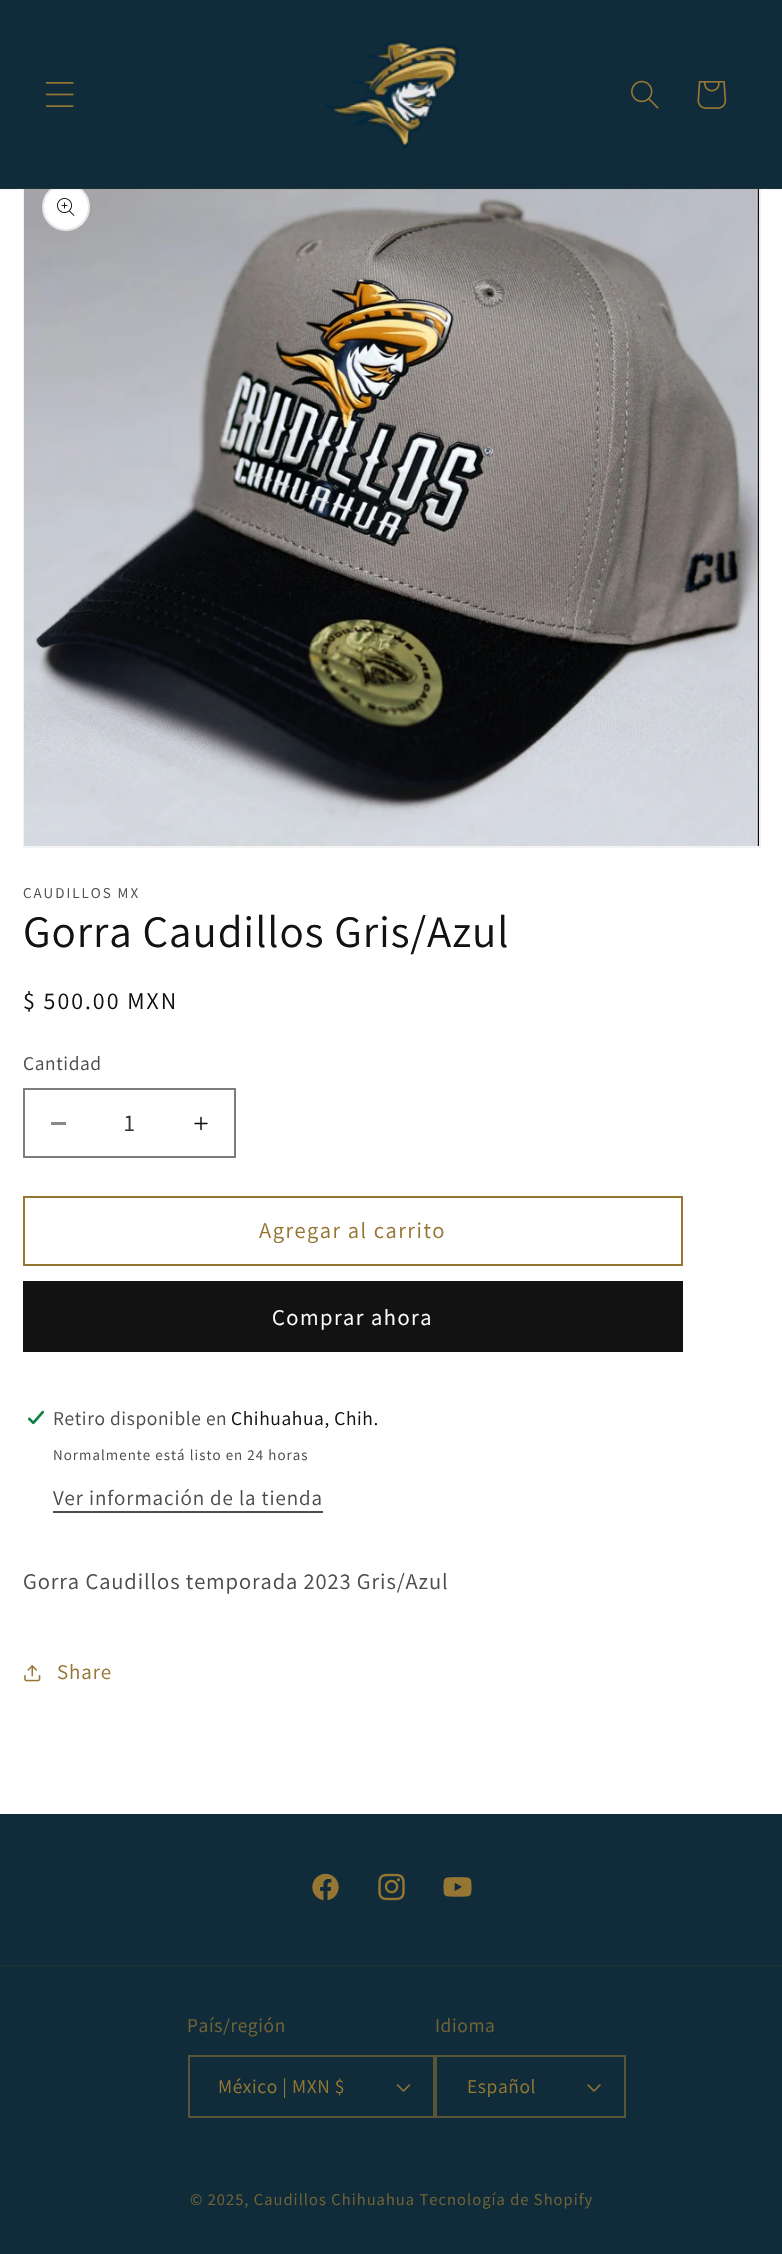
void draw(SkCanvas* canvas) {
    SkPaint paint;
    paint.setAntiAlias(true);
    auto spacedText = [&](const char* s, float x, float y, const SkFont& font, const SkPaint& ink, float letter, float word) {
        std::vector<SkGlyphID> glyphs(font.countText(s, strlen(s), SkTextEncoding::kUTF8));
        std::vector<float> xs(glyphs.size());
        font.textToGlyphs(s, strlen(s), SkTextEncoding::kUTF8, glyphs);
        font.getXPos(glyphs, xs, x);
        float extra = 0;
        for (size_t i = 0; i < glyphs.size(); i++) {
            xs[i] += extra;
            extra += letter + word * (glyphs[i] == font.unicharToGlyph(' '));
        }
        canvas->drawTextBlob(SkTextBlob::MakeFromPosHGlyphs(glyphs, xs, y, font), 0, 0, ink);
    };
    canvas->clear(0xFFFFFFFF);
    paint.setStyle(SkPaint::kStroke_Style);
    paint.setStrokeWidth(2);
    paint.setColor(0xFFF3F3F3);
    canvas->drawRect(SkRect::MakeXYWH(24, 165, 736, 682), paint);
    canvas->drawImageRect(SkImages::DeferredFromEncodedData(SkData::MakeFromFileName("img6.png")), SkRect::MakeXYWH(24, 189, 735, 657), SkSamplingOptions());
    paint.setStyle(SkPaint::kFill_Style);
    paint.setColor(0xFFFFFFFF);
    canvas->drawCircle(66, 207, 24, paint);
    paint.setStyle(SkPaint::kStroke_Style);
    paint.setColor(0x1A121212);
    canvas->drawCircle(66, 207, 23, paint);
    paint.setStyle(SkPaint::kFill_Style);
    paint.setColor(0xFF102C3A);
    canvas->drawRect(SkRect::MakeXYWH(0, 0, 782, 189), paint);
    paint.setColor(0x14957633);
    canvas->drawRect(SkRect::MakeXYWH(0, 188, 782, 2), paint);
    canvas->drawImageRect(SkImages::DeferredFromEncodedData(SkData::MakeFromFileName("img1.png")), SkRect::MakeXYWH(45, 82, 29, 25), SkSamplingOptions());
    canvas->drawImageRect(SkImages::DeferredFromEncodedData(SkData::MakeFromFileName("img2.png")), SkRect::MakeXYWH(324, 40, 135, 109), SkSamplingOptions());
    canvas->drawImageRect(SkImages::DeferredFromEncodedData(SkData::MakeFromFileName("img3.png")), SkRect::MakeXYWH(631, 80, 28, 29), SkSamplingOptions());
    canvas->drawImageRect(SkImages::DeferredFromEncodedData(SkData::MakeFromFileName("img4.png")), SkRect::MakeXYWH(697, 81, 30, 28), SkSamplingOptions());
    canvas->drawImageRect(SkImages::DeferredFromEncodedData(SkData::MakeFromFileName("img5.png")), SkRect::MakeXYWH(57, 198, 18, 18), SkSamplingOptions());
    SkFont font1(fontMgr->matchFamilyStyle("Assistant", SkFontStyle::Normal()), 15);
    font1.setSubpixel(true);
    paint.setColor(0xFF4D4D4D);
    spacedText("CAUDILLOS MX", 23, 898, font1, paint, 2, 0);
    SkFont font2(fontMgr->matchFamilyStyle("Assistant", SkFontStyle::Normal()), 45);
    font2.setSubpixel(true);
    paint.setColor(0xFF121212);
    spacedText("Gorra Caudillos Gris/Azul", 23, 947, font2, paint, 0.9f, 0);
    SkFont font3(fontMgr->matchFamilyStyle("Assistant", SkFontStyle::Normal()), 24);
    font3.setSubpixel(true);
    spacedText("$ 500.00 MXN", 23, 1009, font3, paint, 2, 0);
    SkFont font4(fontMgr->matchFamilyStyle("Assistant", SkFontStyle::Normal()), 19.5f);
    font4.setSubpixel(true);
    paint.setColor(0xFF4D4D4D);
    spacedText("Cantidad", 23, 1070, font4, paint, 0.6f, 0);
    paint.setColor(0xFF898989);
    canvas->drawRect(SkRect::MakeXYWH(51, 1122, 15, 3), paint);
    canvas->drawImageRect(SkImages::DeferredFromEncodedData(SkData::MakeFromFileName("img7.png")), SkRect::MakeXYWH(194, 1116, 14, 15), SkSamplingOptions());
    paint.setStyle(SkPaint::kStroke_Style);
    paint.setColor(0xFF7D7D7D);
    canvas->drawRect(SkRect::MakeXYWH(24, 1089, 211, 68), paint);
    paint.setStyle(SkPaint::kFill_Style);
    paint.setColor(0xFF363636);
    canvas->drawString("1", 124, 1131, font3, paint);
    paint.setStyle(SkPaint::kStroke_Style);
    paint.setColor(0xFF957633);
    canvas->drawRect(SkRect::MakeXYWH(24, 1197, 658, 68), paint);
    SkFont font5(fontMgr->matchFamilyStyle("Assistant", SkFontStyle::Normal()), 22.5f);
    font5.setSubpixel(true);
    paint.setStyle(SkPaint::kFill_Style);
    spacedText("Agregar al carrito", 259, 1238, font5, paint, 1.5f, 0);
    paint.setColor(0xFF121212);
    canvas->drawRect(SkRect::MakeXYWH(23, 1281, 660, 71), paint);
    paint.setColor(0xFFFFFFFF);
    spacedText("Comprar ahora", 272, 1325, font5, paint, 1.5f, 0);
    canvas->drawImageRect(SkImages::DeferredFromEncodedData(SkData::MakeFromFileName("img8.png")), SkRect::MakeXYWH(27, 1410, 18, 15), SkSamplingOptions());
    paint.setColor(0xFF4D4D4D);
    spacedText("Retiro disponible en", 53, 1425, font4, paint, 0.6f, 0);
    paint.setColor(0xFF121212);
    spacedText("Chihuahua, Chih.", 231, 1425, font4, paint, 0.6f, 0);
    paint.setColor(0xFF4D4D4D);
    spacedText("Normalmente está listo en 24 horas", 53, 1460, font1, paint, 1.05f, 0);
    SkFont font6(fontMgr->matchFamilyStyle("Assistant", SkFontStyle::Normal()), 21);
    font6.setSubpixel(true);
    spacedText("Ver información de la tienda", 53, 1505, font6, paint, 0.9f, 0);
    canvas->drawRect(SkRect::MakeXYWH(53, 1511, 270, 2), paint);
    spacedText("Gorra Caudillos temporada 2023 Gris/Azul", 23, 1589, font5, paint, 0.9f, 0);
    canvas->drawImageRect(SkImages::DeferredFromEncodedData(SkData::MakeFromFileName("img9.png")), SkRect::MakeXYWH(24, 1665, 17, 17), SkSamplingOptions());
    paint.setColor(0xFF957633);
    spacedText("Share", 57, 1679, font6, paint, 0.9f, 0);
    paint.setColor(0xFF102C3A);
    canvas->drawRect(SkRect::MakeXYWH(0, 1814, 782, 440), paint);
    canvas->drawImageRect(SkImages::DeferredFromEncodedData(SkData::MakeFromFileName("img10.png")), SkRect::MakeXYWH(312, 1873, 27, 28), SkSamplingOptions());
    canvas->drawImageRect(SkImages::DeferredFromEncodedData(SkData::MakeFromFileName("img11.png")), SkRect::MakeXYWH(378, 1873, 27, 28), SkSamplingOptions());
    canvas->drawImageRect(SkImages::DeferredFromEncodedData(SkData::MakeFromFileName("img12.png")), SkRect::MakeXYWH(443, 1877, 29, 20), SkSamplingOptions());
    paint.setColor(0xFF1B3239);
    canvas->drawRect(SkRect::MakeXYWH(0, 1965, 782, 2), paint);
    paint.setColor(0xFF746435);
    spacedText("País/región", 187, 2032, font4, paint, 0.6f, 0);
    canvas->drawImageRect(SkImages::DeferredFromEncodedData(SkData::MakeFromFileName("img13.png")), SkRect::MakeXYWH(396, 2084, 15, 8), SkSamplingOptions());
    paint.setStyle(SkPaint::kStroke_Style);
    paint.setColor(0xFF595536);
    canvas->drawRect(SkRect::MakeXYWH(189, 2056, 245, 61), paint);
    paint.setStyle(SkPaint::kFill_Style);
    paint.setColor(0xFF957633);
    spacedText("México | MXN $", 218, 2093, font4, paint, 0.6f, 0);
    paint.setColor(0xFF746435);
    spacedText("Idioma", 435, 2032, font4, paint, 0.6f, 0);
    canvas->drawImageRect(SkImages::DeferredFromEncodedData(SkData::MakeFromFileName("img14.png")), SkRect::MakeXYWH(587, 2084, 14, 8), SkSamplingOptions());
    paint.setStyle(SkPaint::kStroke_Style);
    paint.setColor(0xFF595536);
    canvas->drawRect(SkRect::MakeXYWH(436, 2056, 189, 61), paint);
    paint.setStyle(SkPaint::kFill_Style);
    paint.setColor(0xFF957633);
    spacedText("Español", 467, 2093, font4, paint, 0.6f, 0);
    SkFont font7(fontMgr->matchFamilyStyle("Assistant", SkFontStyle::Normal()), 16.5f);
    font7.setSubpixel(true);
    paint.setColor(0xFF746435);
    spacedText("© 2025, Caudillos Chihuahua Tecnología de Shopify", 190, 2205, font7, paint, 1.05f, 0);
}
